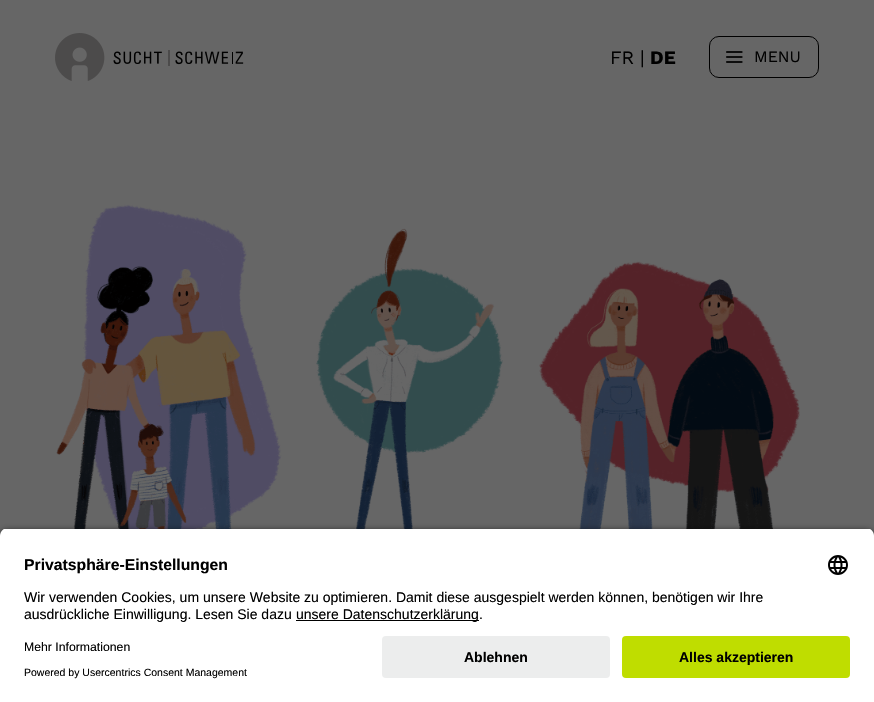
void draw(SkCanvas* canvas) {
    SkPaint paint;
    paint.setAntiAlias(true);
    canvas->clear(0xFF666666);
    canvas->drawImageRect(SkImages::DeferredFromEncodedData(SkData::MakeFromFileName("img1.png")), SkRect::MakeXYWH(55, 33, 189, 48), SkSamplingOptions());
    SkFont font1(fontMgr->matchFamilyStyle("Work Sans", SkFontStyle::Normal()), 19);
    font1.setSubpixel(true);
    paint.setColor(0xFF000000);
    canvas->drawString("FR", 610, 64, font1, paint);
    canvas->drawString("|", 640, 64, font1, paint);
    SkFont font2(fontMgr->matchFamilyStyle("Work Sans", SkFontStyle::Bold()), 19);
    font2.setSubpixel(true);
    canvas->drawString("DE", 650, 64, font2, paint);
    paint.setStyle(SkPaint::kStroke_Style);
    paint.setStrokeWidth(1);
    canvas->drawRoundRect(SkRect::MakeXYWH(709.5f, 36.5f, 109, 41), 9.5f, 9.5f, paint);
    canvas->drawImageRect(SkImages::DeferredFromEncodedData(SkData::MakeFromFileName("img2.png")), SkRect::MakeXYWH(726, 51, 17, 12), SkSamplingOptions());
    SkFont font3(fontMgr->matchFamilyStyle("Work Sans", SkFontStyle::Normal()), 16);
    font3.setSubpixel(true);
    paint.setStyle(SkPaint::kFill_Style);
    canvas->drawString("MENU", 754, 62, font3, paint);
    canvas->drawImageRect(SkImages::DeferredFromEncodedData(SkData::MakeFromFileName("img3.png")), SkRect::MakeXYWH(56, 204, 744, 325), SkSamplingOptions());
    paint.setColor(0xCC000000);
    paint.setMaskFilter(SkMaskFilter::MakeBlur(kNormal_SkBlurStyle, 3.5f));
    canvas->drawRoundRect(SkRect::MakeXYWH(0, 531, 874, 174), 8, 8, paint);
    paint.setMaskFilter(nullptr);
    canvas->save();
    canvas->clipPath(SkPathBuilder().moveTo(8, 528).lineTo(866, 528).cubicTo(870.5f, 528, 874, 531.5f, 874, 536).lineTo(874, 628).lineTo(0, 628).lineTo(0, 536).cubicTo(0, 531.5f, 3.5f, 528, 8, 528).close().detach(), true);
    paint.setColor(0xFFFFFFFF);
    canvas->drawRect(SkRect::MakeXYWH(0, 529, 874, 99), paint);
    canvas->restore();
    SkFont font4(fontMgr->matchFamilyStyle("Liberation Sans", SkFontStyle::Bold()), 15.75f);
    font4.setSubpixel(true);
    paint.setColor(0xFF000000);
    canvas->drawString("Privatsphäre-Einstellungen", 24, 570, font4, paint);
    canvas->drawImageRect(SkImages::DeferredFromEncodedData(SkData::MakeFromFileName("img4.png")), SkRect::MakeXYWH(828, 555, 20, 20), SkSamplingOptions());
    SkFont font5(fontMgr->matchFamilyStyle("Liberation Sans", SkFontStyle::Normal()), 14);
    font5.setSubpixel(true);
    canvas->drawString("Wir verwenden Cookies, um unsere Website zu optimieren. Damit diese ausgespielt werden können, benötigen wir Ihre", 24, 602, font5, paint);
    canvas->drawString("ausdrückliche Einwilligung. Lesen Sie dazu", 24, 619, font5, paint);
    canvas->drawRect(SkRect::MakeXYWH(296, 620, 183, 1), paint);
    canvas->drawString("unsere Datenschutzerklärung.", 296, 619, font5, paint);
    paint.setColor(0xFFFFFFFF);
    canvas->drawRect(SkRect::MakeXYWH(0, 628, 874, 74), paint);
    SkFont font6(fontMgr->matchFamilyStyle("Liberation Sans", SkFontStyle::Normal()), 12.25f);
    font6.setSubpixel(true);
    paint.setColor(0xFF000000);
    canvas->drawString("Mehr Informationen", 24, 651, font6, paint);
    SkFont font7(fontMgr->matchFamilyStyle("Liberation Sans", SkFontStyle::Normal()), 10.5f);
    font7.setSubpixel(true);
    canvas->drawString("Powered by Usercentrics Consent Management", 24, 676, font7, paint);
    paint.setColor(0xFFECEDED);
    canvas->drawRoundRect(SkRect::MakeXYWH(382, 636, 228, 42), 4, 4, paint);
    SkFont font8(fontMgr->matchFamilyStyle("Liberation Sans", SkFontStyle::Bold()), 14);
    font8.setSubpixel(true);
    paint.setColor(0xFF000000);
    canvas->drawString("Ablehnen", 464, 662, font8, paint);
    paint.setColor(0xFFBFDD00);
    canvas->drawRoundRect(SkRect::MakeXYWH(622, 636, 228, 42), 4, 4, paint);
    paint.setColor(0xFF000000);
    canvas->drawString("Alles akzeptieren", 679, 662, font8, paint);
}
